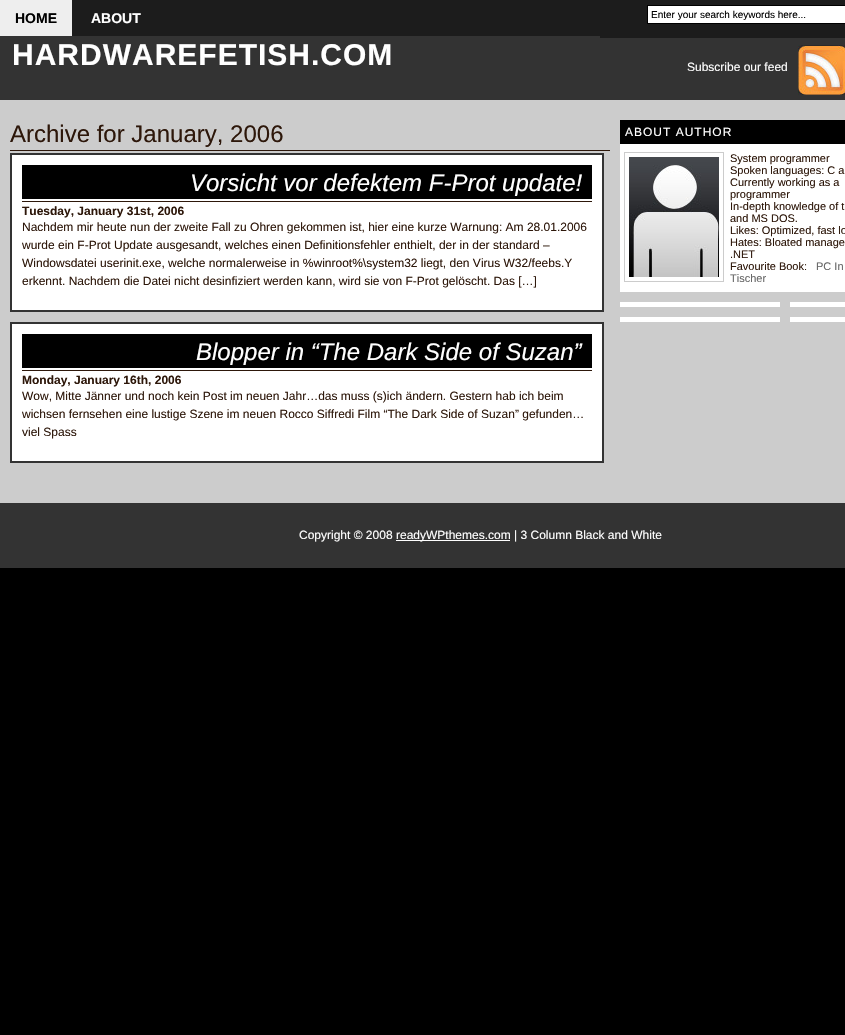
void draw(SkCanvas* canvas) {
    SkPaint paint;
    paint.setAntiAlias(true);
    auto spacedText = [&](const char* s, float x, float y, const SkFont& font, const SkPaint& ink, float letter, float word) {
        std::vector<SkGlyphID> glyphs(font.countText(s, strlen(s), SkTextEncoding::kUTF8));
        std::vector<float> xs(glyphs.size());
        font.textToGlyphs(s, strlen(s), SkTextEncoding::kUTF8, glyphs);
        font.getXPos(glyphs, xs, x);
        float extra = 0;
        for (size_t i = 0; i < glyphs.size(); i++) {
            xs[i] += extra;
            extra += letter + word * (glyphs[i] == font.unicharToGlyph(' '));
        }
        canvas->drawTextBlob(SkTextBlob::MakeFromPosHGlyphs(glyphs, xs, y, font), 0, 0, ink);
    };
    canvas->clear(0xFF000000);
    paint.setColor(0xFFCCCCCC);
    canvas->drawRect(SkRect::MakeXYWH(0, 100, 845, 403), paint);
    paint.setColor(0xFF333333);
    canvas->drawRect(SkRect::MakeXYWH(0, 36, 845, 64), paint);
    paint.setColor(0xFF1C1C1C);
    canvas->drawRect(SkRect::MakeXYWH(72, 0, 528, 36), paint);
    paint.setColor(0xFFEEEEEE);
    canvas->drawRect(SkRect::MakeXYWH(0, 0, 72, 36), paint);
    SkFont font1(fontMgr->matchFamilyStyle("Liberation Sans", SkFontStyle::Bold()), 14);
    font1.setSubpixel(true);
    paint.setColor(0xFF000000);
    canvas->drawString("HOME", 15, 23, font1, paint);
    paint.setColor(0xFFFFFFFF);
    canvas->drawString("ABOUT", 91, 23, font1, paint);
    paint.setColor(0xFF1C1C1C);
    canvas->drawRect(SkRect::MakeXYWH(600, 0, 245, 38), paint);
    paint.setColor(0xFFFFFFFF);
    canvas->drawRect(SkRect::MakeXYWH(647.5f, 5.5f, 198, 18), paint);
    paint.setStyle(SkPaint::kStroke_Style);
    paint.setStrokeWidth(1);
    paint.setColor(0xFF000000);
    canvas->drawRect(SkRect::MakeXYWH(647.5f, 5.5f, 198, 18), paint);
    SkFont font2(fontMgr->matchFamilyStyle("Liberation Sans", SkFontStyle::Normal()), 10);
    font2.setSubpixel(true);
    paint.setStyle(SkPaint::kFill_Style);
    canvas->drawString("Enter your search keywords here...", 651, 18, font2, paint);
    SkFont font3(fontMgr->matchFamilyStyle("Liberation Sans", SkFontStyle::Bold()), 30);
    font3.setSubpixel(true);
    paint.setColor(0xFFFFFFFF);
    spacedText("HARDWAREFETISH.COM", 12, 65, font3, paint, 1, 0);
    canvas->drawImageRect(SkImages::DeferredFromEncodedData(SkData::MakeFromFileName("img1.png")), SkRect::MakeXYWH(798, 45, 47, 50), SkSamplingOptions());
    SkFont font4(fontMgr->matchFamilyStyle("Liberation Sans", SkFontStyle::Normal()), 12);
    font4.setSubpixel(true);
    canvas->drawString("Subscribe our feed", 687, 71, font4, paint);
    paint.setColor(0xFF2D170A);
    canvas->drawRect(SkRect::MakeXYWH(10, 150, 600, 1), paint);
    SkFont font5(fontMgr->matchFamilyStyle("Liberation Sans", SkFontStyle::Normal()), 24);
    font5.setSubpixel(true);
    canvas->drawString("Archive for January, 2006", 10, 142, font5, paint);
    paint.setColor(0xFFFFFFFF);
    canvas->drawRect(SkRect::MakeXYWH(11, 154, 592, 157), paint);
    paint.setStyle(SkPaint::kStroke_Style);
    paint.setStrokeWidth(2);
    paint.setColor(0xFF333333);
    canvas->drawRect(SkRect::MakeXYWH(11, 154, 592, 157), paint);
    paint.setStyle(SkPaint::kFill_Style);
    paint.setColor(0xFF2D170A);
    canvas->drawRect(SkRect::MakeXYWH(22, 201, 570, 1), paint);
    paint.setColor(0xFF000000);
    canvas->drawRect(SkRect::MakeXYWH(22, 165, 570, 34), paint);
    SkFont font6(fontMgr->matchFamilyStyle("Liberation Sans", SkFontStyle::Italic()), 24);
    font6.setSubpixel(true);
    paint.setColor(0xFFFFFFFF);
    canvas->drawString("Vorsicht vor defektem F-Prot update!", 190, 191, font6, paint);
    SkFont font7(fontMgr->matchFamilyStyle("Liberation Sans", SkFontStyle::Bold()), 12);
    font7.setSubpixel(true);
    paint.setColor(0xFF2D170A);
    canvas->drawString("Tuesday, January 31st, 2006", 22, 215, font7, paint);
    canvas->drawString("Nachdem mir heute nun der zweite Fall zu Ohren gekommen ist, hier eine kurze Warnung: Am 28.01.2006", 22, 231, font4, paint);
    canvas->drawString("wurde ein F-Prot Update ausgesandt, welches einen Definitionsfehler enthielt, der in der standard –", 22, 249, font4, paint);
    canvas->drawString("Windowsdatei userinit.exe, welche normalerweise in %winroot%\\system32 liegt, den Virus W32/feebs.Y", 22, 267, font4, paint);
    canvas->drawString("erkennt. Nachdem die Datei nicht desinfiziert werden kann, wird sie von F-Prot gelöscht. Das […]", 22, 285, font4, paint);
    paint.setColor(0xFFFFFFFF);
    canvas->drawRect(SkRect::MakeXYWH(11, 323, 592, 139), paint);
    paint.setStyle(SkPaint::kStroke_Style);
    paint.setColor(0xFF333333);
    canvas->drawRect(SkRect::MakeXYWH(11, 323, 592, 139), paint);
    paint.setStyle(SkPaint::kFill_Style);
    paint.setColor(0xFF2D170A);
    canvas->drawRect(SkRect::MakeXYWH(22, 370, 570, 1), paint);
    paint.setColor(0xFF000000);
    canvas->drawRect(SkRect::MakeXYWH(22, 334, 570, 34), paint);
    paint.setColor(0xFFFFFFFF);
    canvas->drawString("Blopper in “The Dark Side of Suzan”", 196, 360, font6, paint);
    paint.setColor(0xFF2D170A);
    canvas->drawString("Monday, January 16th, 2006", 22, 384, font7, paint);
    canvas->drawString("Wow, Mitte Jänner und noch kein Post im neuen Jahr…das muss (s)ich ändern. Gestern hab ich beim", 22, 400, font4, paint);
    canvas->drawString("wichsen fernsehen eine lustige Szene im neuen Rocco Siffredi Film “The Dark Side of Suzan” gefunden…", 22, 418, font4, paint);
    canvas->drawString("viel Spass", 22, 436, font4, paint);
    paint.setColor(0xFFFFFFFF);
    canvas->drawRect(SkRect::MakeXYWH(620, 144, 225, 148), paint);
    paint.setColor(0xFF000000);
    canvas->drawRect(SkRect::MakeXYWH(620, 120, 225, 24), paint);
    paint.setColor(0xFFFFFFFF);
    spacedText("ABOUT AUTHOR", 625, 136, font4, paint, 1, 0);
    paint.setStyle(SkPaint::kStroke_Style);
    paint.setStrokeWidth(1);
    paint.setColor(0xFFCCCCCC);
    canvas->drawRect(SkRect::MakeXYWH(624.5f, 152.5f, 99, 129), paint);
    canvas->drawImageRect(SkImages::DeferredFromEncodedData(SkData::MakeFromFileName("img2.png")), SkRect::MakeXYWH(629, 157, 90, 120), SkSamplingOptions());
    SkFont font8(fontMgr->matchFamilyStyle("Liberation Sans", SkFontStyle::Normal()), 11);
    font8.setSubpixel(true);
    paint.setStyle(SkPaint::kFill_Style);
    paint.setColor(0xFF2D170A);
    canvas->drawString("System programmer", 730, 162, font8, paint);
    canvas->drawString("Spoken languages: C a", 730, 174, font8, paint);
    canvas->drawString("Currently working as a", 730, 186, font8, paint);
    canvas->drawString("programmer", 730, 198, font8, paint);
    canvas->drawString("In-depth knowledge of t", 730, 210, font8, paint);
    canvas->drawString("and MS DOS.", 730, 222, font8, paint);
    canvas->drawString("Likes: Optimized, fast lo", 730, 234, font8, paint);
    canvas->drawString("Hates: Bloated manage", 730, 246, font8, paint);
    canvas->drawString(".NET", 730, 258, font8, paint);
    canvas->drawString("Favourite Book:", 730, 270, font8, paint);
    paint.setColor(0xFF666666);
    canvas->drawString("PC In", 816, 270, font8, paint);
    canvas->drawString("Tischer", 730, 282, font8, paint);
    paint.setColor(0xFFFFFFFF);
    canvas->drawRect(SkRect::MakeXYWH(620, 302, 160, 5), paint);
    canvas->drawRect(SkRect::MakeXYWH(620, 317, 160, 5), paint);
    canvas->drawRect(SkRect::MakeXYWH(790, 302, 55, 5), paint);
    canvas->drawRect(SkRect::MakeXYWH(790, 317, 55, 5), paint);
    paint.setColor(0xFF333333);
    canvas->drawRect(SkRect::MakeXYWH(0, 503, 845, 65), paint);
    paint.setColor(0xFFFFFFFF);
    canvas->drawString("Copyright © 2008", 299, 539, font4, paint);
    canvas->drawRect(SkRect::MakeXYWH(396, 540, 114, 1), paint);
    canvas->drawString("readyWPthemes.com | 3 Column Black and White", 396, 539, font4, paint);
}
